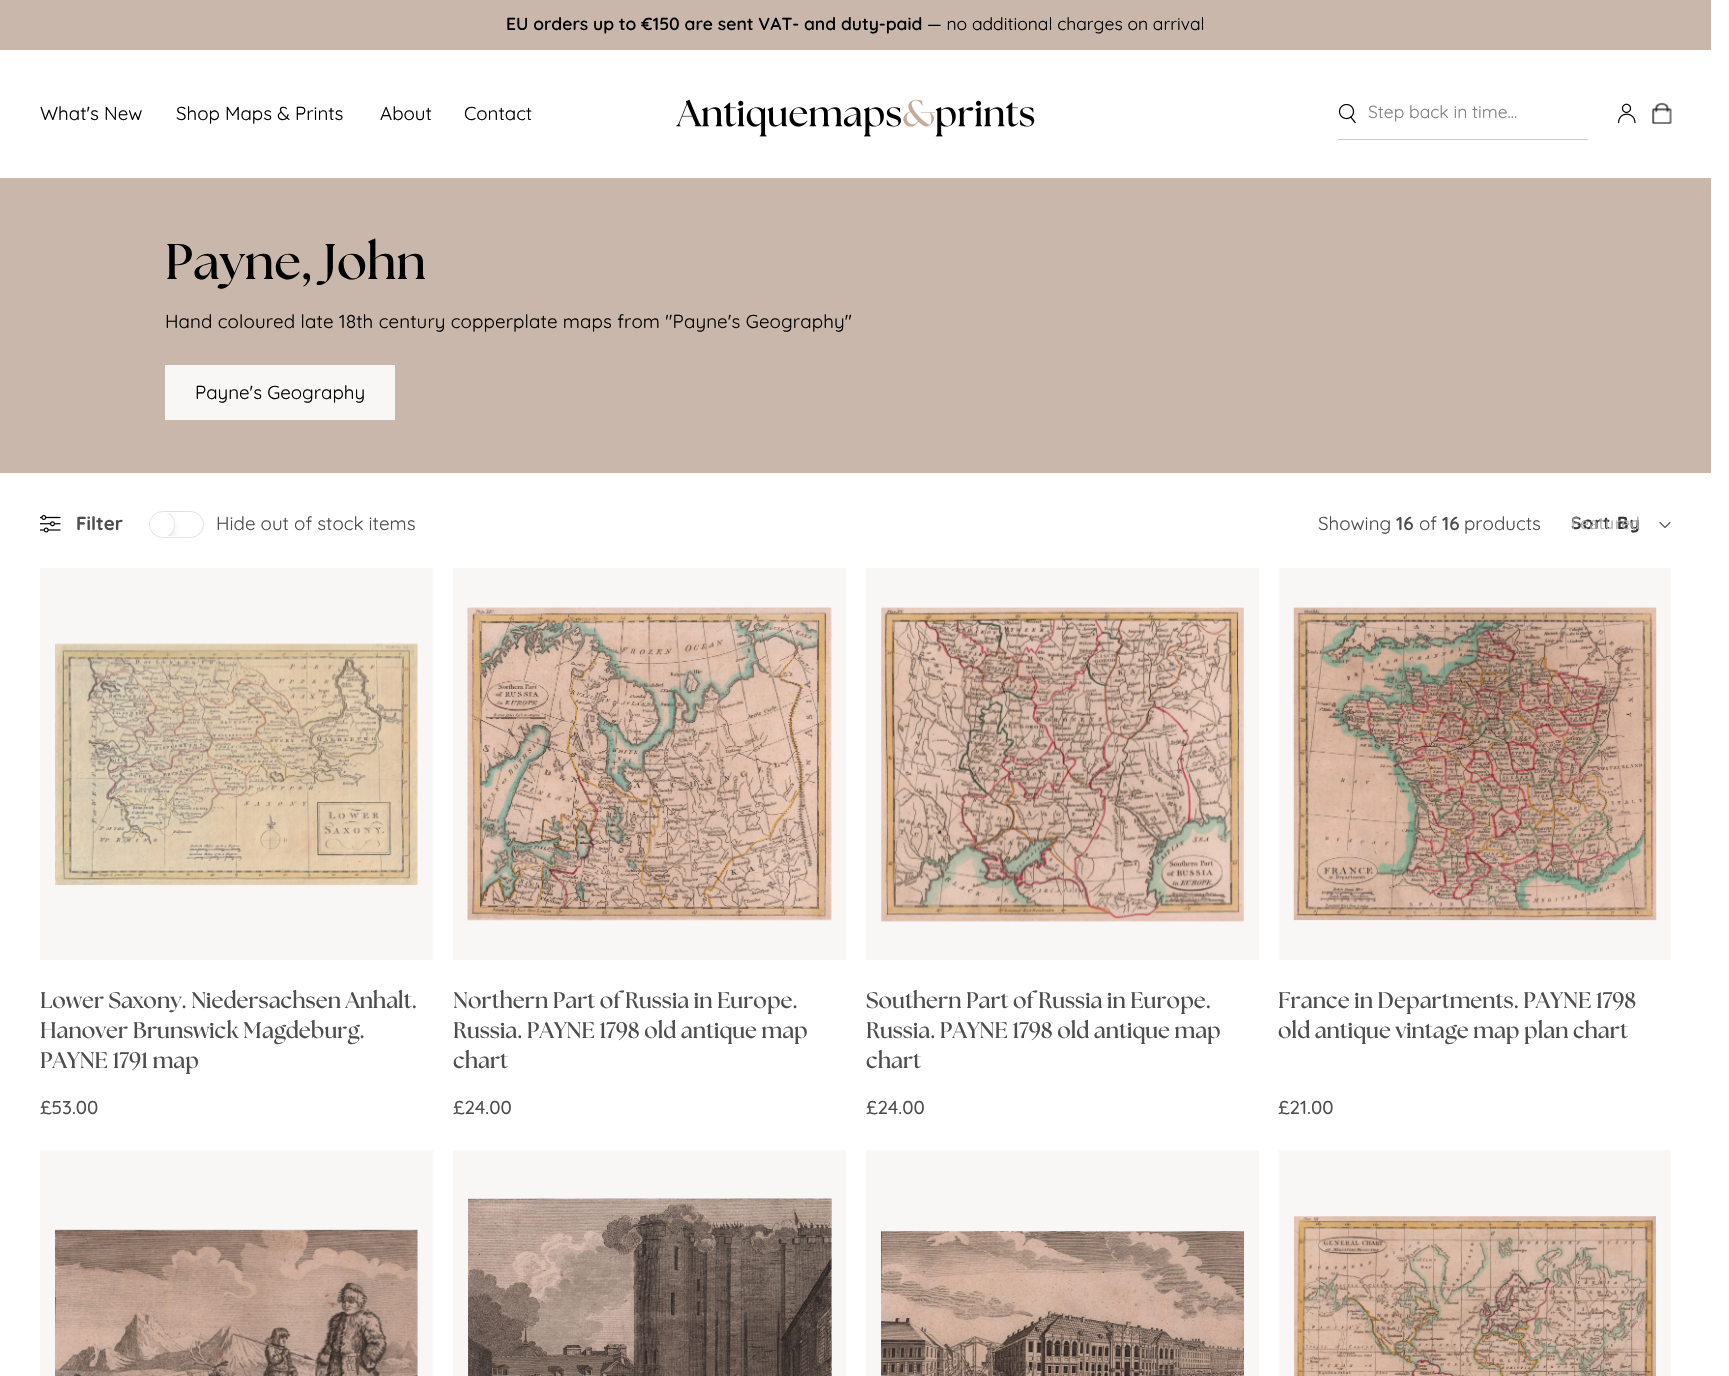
void draw(SkCanvas* canvas) {
    SkPaint paint;
    paint.setAntiAlias(true);
    auto spacedText = [&](const char* s, float x, float y, const SkFont& font, const SkPaint& ink, float letter, float word) {
        std::vector<SkGlyphID> glyphs(font.countText(s, strlen(s), SkTextEncoding::kUTF8));
        std::vector<float> xs(glyphs.size());
        font.textToGlyphs(s, strlen(s), SkTextEncoding::kUTF8, glyphs);
        font.getXPos(glyphs, xs, x);
        float extra = 0;
        for (size_t i = 0; i < glyphs.size(); i++) {
            xs[i] += extra;
            extra += letter + word * (glyphs[i] == font.unicharToGlyph(' '));
        }
        canvas->drawTextBlob(SkTextBlob::MakeFromPosHGlyphs(glyphs, xs, y, font), 0, 0, ink);
    };
    canvas->clear(0xFFFFFFFF);
    paint.setColor(0xFFC8B7AA);
    canvas->drawRect(SkRect::MakeXYWH(0, 0, 1711, 50), paint);
    SkFont font1(fontMgr->matchFamilyStyle("Quicksand", SkFontStyle(600, SkFontStyle::kNormal_Width, SkFontStyle::kUpright_Slant)), 17.5f);
    font1.setSubpixel(true);
    paint.setColor(0xFF000000);
    canvas->drawString("EU orders up to €150 are sent VAT- and duty-paid", 506, 30, font1, paint);
    SkFont font2(fontMgr->matchFamilyStyle("Quicksand", SkFontStyle::Normal()), 17.5f);
    font2.setSubpixel(true);
    canvas->drawString("— no additional charges on arrival", 927, 30, font2, paint);
    SkFont font3(fontMgr->matchFamilyStyle("Quicksand", SkFontStyle::Normal()), 18.75f);
    font3.setSubpixel(true);
    canvas->drawString("What's New", 40, 120, font3, paint);
    canvas->drawString("Shop Maps & Prints", 176, 120, font3, paint);
    canvas->drawString("About", 380, 120, font3, paint);
    canvas->drawString("Contact", 464, 120, font3, paint);
    canvas->drawImageRect(SkImages::DeferredFromEncodedData(SkData::MakeFromFileName("img1.png")), SkRect::MakeXYWH(676, 99, 359, 38), SkSamplingOptions());
    canvas->drawImageRect(SkImages::DeferredFromEncodedData(SkData::MakeFromFileName("img2.png")), SkRect::MakeXYWH(1338, 104, 18, 20), SkSamplingOptions());
    paint.setColor(0xFFCCCCCC);
    canvas->drawRect(SkRect::MakeXYWH(1338, 139, 250, 1), paint);
    paint.setColor(0xFF808080);
    canvas->drawString("Step back in time...", 1368, 118, font2, paint);
    canvas->drawImageRect(SkImages::DeferredFromEncodedData(SkData::MakeFromFileName("img3.png")), SkRect::MakeXYWH(1618, 103, 18, 21), SkSamplingOptions());
    canvas->drawImageRect(SkImages::DeferredFromEncodedData(SkData::MakeFromFileName("img4.png")), SkRect::MakeXYWH(1652, 102, 20, 22), SkSamplingOptions());
    paint.setColor(0xFFC8B7AA);
    canvas->drawRect(SkRect::MakeXYWH(0, 178, 1711, 295), paint);
    SkFont font4(fontMgr->matchFamilyStyle("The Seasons", SkFontStyle::Bold()), 50);
    font4.setSubpixel(true);
    paint.setColor(0xFF000000);
    canvas->drawString("Payne, John", 165, 279, font4, paint);
    spacedText("Hand coloured late 18th century copperplate maps from \"Payne's Geography\"", 165, 328, font3, paint, 0.12f, 0);
    paint.setColor(0xFFF9F7F5);
    canvas->drawRect(SkRect::MakeXYWH(165, 365, 230, 55), paint);
    paint.setColor(0xFF000000);
    canvas->drawString("Payne's Geography", 195, 399, font3, paint);
    canvas->drawImageRect(SkImages::DeferredFromEncodedData(SkData::MakeFromFileName("img5.png")), SkRect::MakeXYWH(40, 515, 21, 18), SkSamplingOptions());
    SkFont font5(fontMgr->matchFamilyStyle("Quicksand", SkFontStyle::Bold()), 18.75f);
    font5.setSubpixel(true);
    paint.setColor(0xFF4D4D4D);
    canvas->drawString("Filter", 76, 530, font5, paint);
    paint.setStyle(SkPaint::kStroke_Style);
    paint.setStrokeWidth(1);
    paint.setColor(0xFFE2E2E2);
    canvas->drawRoundRect(SkRect::MakeXYWH(149.5f, 511.5f, 54, 26), 13, 13, paint);
    canvas->save();
    canvas->clipPath(SkPathBuilder().moveTo(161.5f, 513).lineTo(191.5f, 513).cubicTo(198, 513, 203, 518, 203, 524.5f).cubicTo(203, 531, 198, 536, 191.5f, 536).lineTo(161.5f, 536).cubicTo(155, 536, 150, 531, 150, 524.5f).cubicTo(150, 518, 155, 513, 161.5f, 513).close().detach(), true);
    paint.setStyle(SkPaint::kFill_Style);
    paint.setColor(0x14000000);
    paint.setMaskFilter(SkMaskFilter::MakeBlur(kNormal_SkBlurStyle, 2.5f));
    canvas->drawRoundRect(SkRect::MakeXYWH(149, 516, 26, 27), 13, 13, paint);
    paint.setMaskFilter(nullptr);
    canvas->restore();
    canvas->save();
    canvas->clipPath(SkPathBuilder().moveTo(161.5f, 513).lineTo(191.5f, 513).cubicTo(198, 513, 203, 518, 203, 524.5f).cubicTo(203, 531, 198, 536, 191.5f, 536).lineTo(161.5f, 536).cubicTo(155, 536, 150, 531, 150, 524.5f).cubicTo(150, 518, 155, 513, 161.5f, 513).close().detach(), true);
    paint.setColor(0xFFFFFFFF);
    canvas->drawRoundRect(SkRect::MakeXYWH(149, 511, 26, 27), 13, 13, paint);
    canvas->restore();
    paint.setColor(0xFFE2E2E2);
    canvas->drawPath(SkPathBuilder().moveTo(169, 513).cubicTo(177, 518, 177, 531, 169, 536).lineTo(167, 536).cubicTo(176.5f, 532, 176.5f, 517, 167, 513).close().detach(), paint);
    paint.setColor(0xFF4D4D4D);
    canvas->drawString("Hide out of stock items", 216, 530, font3, paint);
    canvas->drawString("Showing", 1318, 530, font3, paint);
    SkFont font6(fontMgr->matchFamilyStyle("Quicksand", SkFontStyle(600, SkFontStyle::kNormal_Width, SkFontStyle::kUpright_Slant)), 18.75f);
    font6.setSubpixel(true);
    canvas->drawString("16", 1396, 530, font6, paint);
    canvas->drawString("of", 1419, 530, font3, paint);
    canvas->drawString("16", 1442, 530, font6, paint);
    canvas->drawString("products", 1464, 530, font3, paint);
    SkFont font7(fontMgr->matchFamilyStyle("Quicksand", SkFontStyle::Bold()), 17.5f);
    font7.setSubpixel(true);
    paint.setColor(0xFF363636);
    spacedText("Sort By", 1571, 529, font7, paint, 1, 0);
    SkFont font8(fontMgr->matchFamilyStyle("Assistant", SkFontStyle::Normal()), 17.5f);
    font8.setSubpixel(true);
    paint.setColor(0xFFAEAEAE);
    spacedText("Featured", 1571, 529, font8, paint, 0.5f, 0);
    canvas->drawImageRect(SkImages::DeferredFromEncodedData(SkData::MakeFromFileName("img6.png")), SkRect::MakeXYWH(1659, 522, 12, 6), SkSamplingOptions());
    paint.setColor(0xFFF9F7F5);
    canvas->drawRect(SkRect::MakeXYWH(40, 568, 393, 392), paint);
    canvas->drawImageRect(SkImages::DeferredFromEncodedData(SkData::MakeFromFileName("img7.png")), SkRect::MakeXYWH(55, 643, 363, 243), SkSamplingOptions());
    SkFont font9(fontMgr->matchFamilyStyle("The Seasons", SkFontStyle::Bold()), 22.5f);
    font9.setSubpixel(true);
    paint.setColor(0xFF4D4D4D);
    canvas->drawString("Lower Saxony. Niedersachsen Anhalt.", 40, 1008, font9, paint);
    canvas->drawString("Hanover Brunswick Magdeburg.", 40, 1038, font9, paint);
    canvas->drawString("PAYNE 1791 map", 40, 1068, font9, paint);
    SkFont font10(fontMgr->matchFamilyStyle("Quicksand", SkFontStyle(500, SkFontStyle::kNormal_Width, SkFontStyle::kUpright_Slant)), 18.75f);
    font10.setSubpixel(true);
    canvas->drawString("£53.00", 40, 1114, font10, paint);
    paint.setColor(0xFFF9F7F5);
    canvas->drawRect(SkRect::MakeXYWH(453, 568, 393, 392), paint);
    canvas->drawImageRect(SkImages::DeferredFromEncodedData(SkData::MakeFromFileName("img8.png")), SkRect::MakeXYWH(467, 607, 365, 314), SkSamplingOptions());
    paint.setColor(0xFF4D4D4D);
    canvas->drawString("Northern Part of Russia in Europe.", 453, 1008, font9, paint);
    canvas->drawString("Russia. PAYNE 1798 old antique map", 453, 1038, font9, paint);
    canvas->drawString("chart", 453, 1068, font9, paint);
    canvas->drawString("£24.00", 453, 1114, font10, paint);
    paint.setColor(0xFFF9F7F5);
    canvas->drawRect(SkRect::MakeXYWH(866, 568, 393, 392), paint);
    canvas->drawImageRect(SkImages::DeferredFromEncodedData(SkData::MakeFromFileName("img9.png")), SkRect::MakeXYWH(881, 607, 363, 315), SkSamplingOptions());
    paint.setColor(0xFF4D4D4D);
    canvas->drawString("Southern Part of Russia in Europe.", 866, 1008, font9, paint);
    canvas->drawString("Russia. PAYNE 1798 old antique map", 866, 1038, font9, paint);
    canvas->drawString("chart", 866, 1068, font9, paint);
    canvas->drawString("£24.00", 866, 1114, font10, paint);
    paint.setColor(0xFFF9F7F5);
    canvas->drawRect(SkRect::MakeXYWH(1279, 568, 392, 392), paint);
    canvas->drawImageRect(SkImages::DeferredFromEncodedData(SkData::MakeFromFileName("img10.png")), SkRect::MakeXYWH(1293, 607, 364, 314), SkSamplingOptions());
    paint.setColor(0xFF4D4D4D);
    canvas->drawString("France in Departments. PAYNE 1798", 1278, 1008, font9, paint);
    canvas->drawString("old antique vintage map plan chart", 1278, 1038, font9, paint);
    canvas->drawString("£21.00", 1278, 1114, font10, paint);
    paint.setColor(0xFFF9F7F5);
    canvas->drawRect(SkRect::MakeXYWH(40, 1150, 393, 226), paint);
    canvas->drawImageRect(SkImages::DeferredFromEncodedData(SkData::MakeFromFileName("img11.png")), SkRect::MakeXYWH(55, 1229, 363, 147), SkSamplingOptions());
    canvas->drawRect(SkRect::MakeXYWH(453, 1150, 393, 226), paint);
    canvas->drawImageRect(SkImages::DeferredFromEncodedData(SkData::MakeFromFileName("img12.png")), SkRect::MakeXYWH(468, 1198, 364, 178), SkSamplingOptions());
    canvas->drawRect(SkRect::MakeXYWH(866, 1150, 393, 226), paint);
    canvas->drawImageRect(SkImages::DeferredFromEncodedData(SkData::MakeFromFileName("img13.png")), SkRect::MakeXYWH(881, 1231, 363, 145), SkSamplingOptions());
    canvas->drawRect(SkRect::MakeXYWH(1279, 1150, 392, 226), paint);
    canvas->drawImageRect(SkImages::DeferredFromEncodedData(SkData::MakeFromFileName("img14.png")), SkRect::MakeXYWH(1294, 1216, 362, 160), SkSamplingOptions());
}
